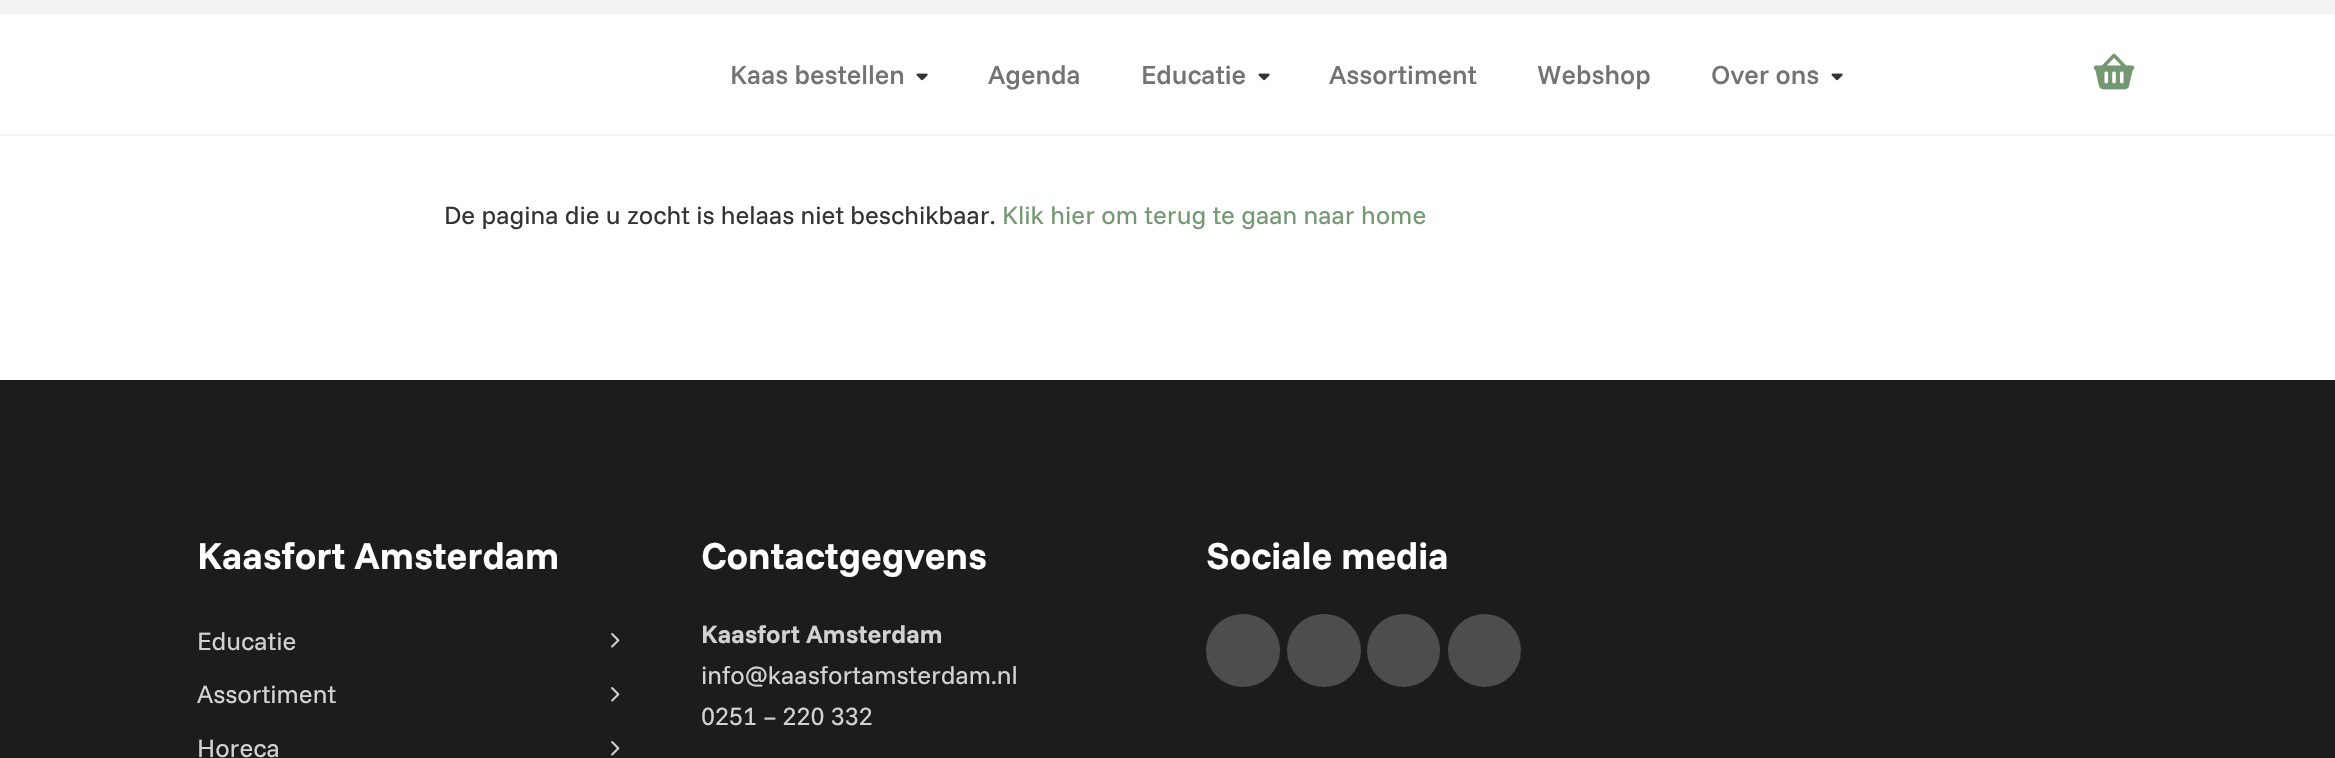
void draw(SkCanvas* canvas) {
    SkPaint paint;
    paint.setAntiAlias(true);
    canvas->clear(0xFFFFFFFF);
    paint.setColor(0xFFF2F3F2);
    canvas->drawRect(SkRect::MakeXYWH(0, 134, 2335, 2), paint);
    canvas->drawRect(SkRect::MakeXYWH(0, 0, 2335, 14), paint);
    SkFont font1(fontMgr->matchFamilyStyle("Funnel Sans", SkFontStyle(500, SkFontStyle::kNormal_Width, SkFontStyle::kUpright_Slant)), 26.75f);
    font1.setSubpixel(true);
    paint.setColor(0xFF737373);
    canvas->drawString("Kaas bestellen", 730, 84, font1, paint);
    canvas->drawImageRect(SkImages::DeferredFromEncodedData(SkData::MakeFromFileName("img1.png")), SkRect::MakeXYWH(916, 73, 12, 8), SkSamplingOptions());
    canvas->drawString("Agenda", 988, 84, font1, paint);
    canvas->drawString("Educatie", 1141, 84, font1, paint);
    canvas->drawImageRect(SkImages::DeferredFromEncodedData(SkData::MakeFromFileName("img1.png")), SkRect::MakeXYWH(1258, 73, 12, 8), SkSamplingOptions());
    canvas->drawString("Assortiment", 1329, 84, font1, paint);
    canvas->drawString("Webshop", 1537, 84, font1, paint);
    canvas->drawString("Over ons", 1711, 84, font1, paint);
    canvas->drawImageRect(SkImages::DeferredFromEncodedData(SkData::MakeFromFileName("img1.png")), SkRect::MakeXYWH(1831, 73, 12, 8), SkSamplingOptions());
    canvas->drawImageRect(SkImages::DeferredFromEncodedData(SkData::MakeFromFileName("img2.png")), SkRect::MakeXYWH(2093, 53, 42, 37), SkSamplingOptions());
    SkFont font2(fontMgr->matchFamilyStyle("Funnel Sans", SkFontStyle::Normal()), 25.5f);
    font2.setSubpixel(true);
    paint.setColor(0xFF333333);
    canvas->drawString("De pagina die u zocht is helaas niet beschikbaar.", 444, 224, font2, paint);
    paint.setColor(0xFF739872);
    canvas->drawString("Klik hier om terug te gaan naar home", 1002, 224, font2, paint);
    paint.setColor(0xFF1C1C1C);
    canvas->drawRect(SkRect::MakeXYWH(0, 380, 2335, 378), paint);
    SkFont font3(fontMgr->matchFamilyStyle("Funnel Sans", SkFontStyle::Bold()), 38.25f);
    font3.setSubpixel(true);
    paint.setColor(0xFFFFFFFF);
    canvas->drawString("Kaasfort Amsterdam", 197, 569, font3, paint);
    paint.setColor(0xFFD2D2D2);
    canvas->drawString("Educatie", 197, 650, font2, paint);
    canvas->drawImageRect(SkImages::DeferredFromEncodedData(SkData::MakeFromFileName("img3.png")), SkRect::MakeXYWH(611, 633, 9, 15), SkSamplingOptions());
    canvas->drawString("Assortiment", 197, 703, font2, paint);
    canvas->drawImageRect(SkImages::DeferredFromEncodedData(SkData::MakeFromFileName("img3.png")), SkRect::MakeXYWH(611, 687, 9, 15), SkSamplingOptions());
    canvas->drawString("Horeca", 197, 757, font2, paint);
    canvas->drawImageRect(SkImages::DeferredFromEncodedData(SkData::MakeFromFileName("img3.png")), SkRect::MakeXYWH(611, 741, 9, 15), SkSamplingOptions());
    paint.setColor(0xFFFFFFFF);
    canvas->drawString("Contactgegvens", 701, 569, font3, paint);
    SkFont font4(fontMgr->matchFamilyStyle("Funnel Sans", SkFontStyle::Bold()), 25.5f);
    font4.setSubpixel(true);
    paint.setColor(0xFFD2D2D2);
    canvas->drawString("Kaasfort Amsterdam", 701, 643, font4, paint);
    canvas->drawString("info@kaasfortamsterdam.nl", 701, 684, font2, paint);
    canvas->drawString("0251 – 220 332", 701, 725, font2, paint);
    paint.setColor(0xFFFFFFFF);
    canvas->drawString("Sociale media", 1206, 569, font3, paint);
    paint.setColor(0xFF4D4D4D);
    canvas->drawRoundRect(SkRect::MakeXYWH(1206, 614, 74, 73), 36.5f, 36.5f, paint);
    canvas->drawRoundRect(SkRect::MakeXYWH(1287, 614, 74, 73), 36.5f, 36.5f, paint);
    canvas->drawCircle(1403.5f, 650.5f, 36.5f, paint);
    canvas->drawCircle(1484.5f, 650.5f, 36.5f, paint);
}
